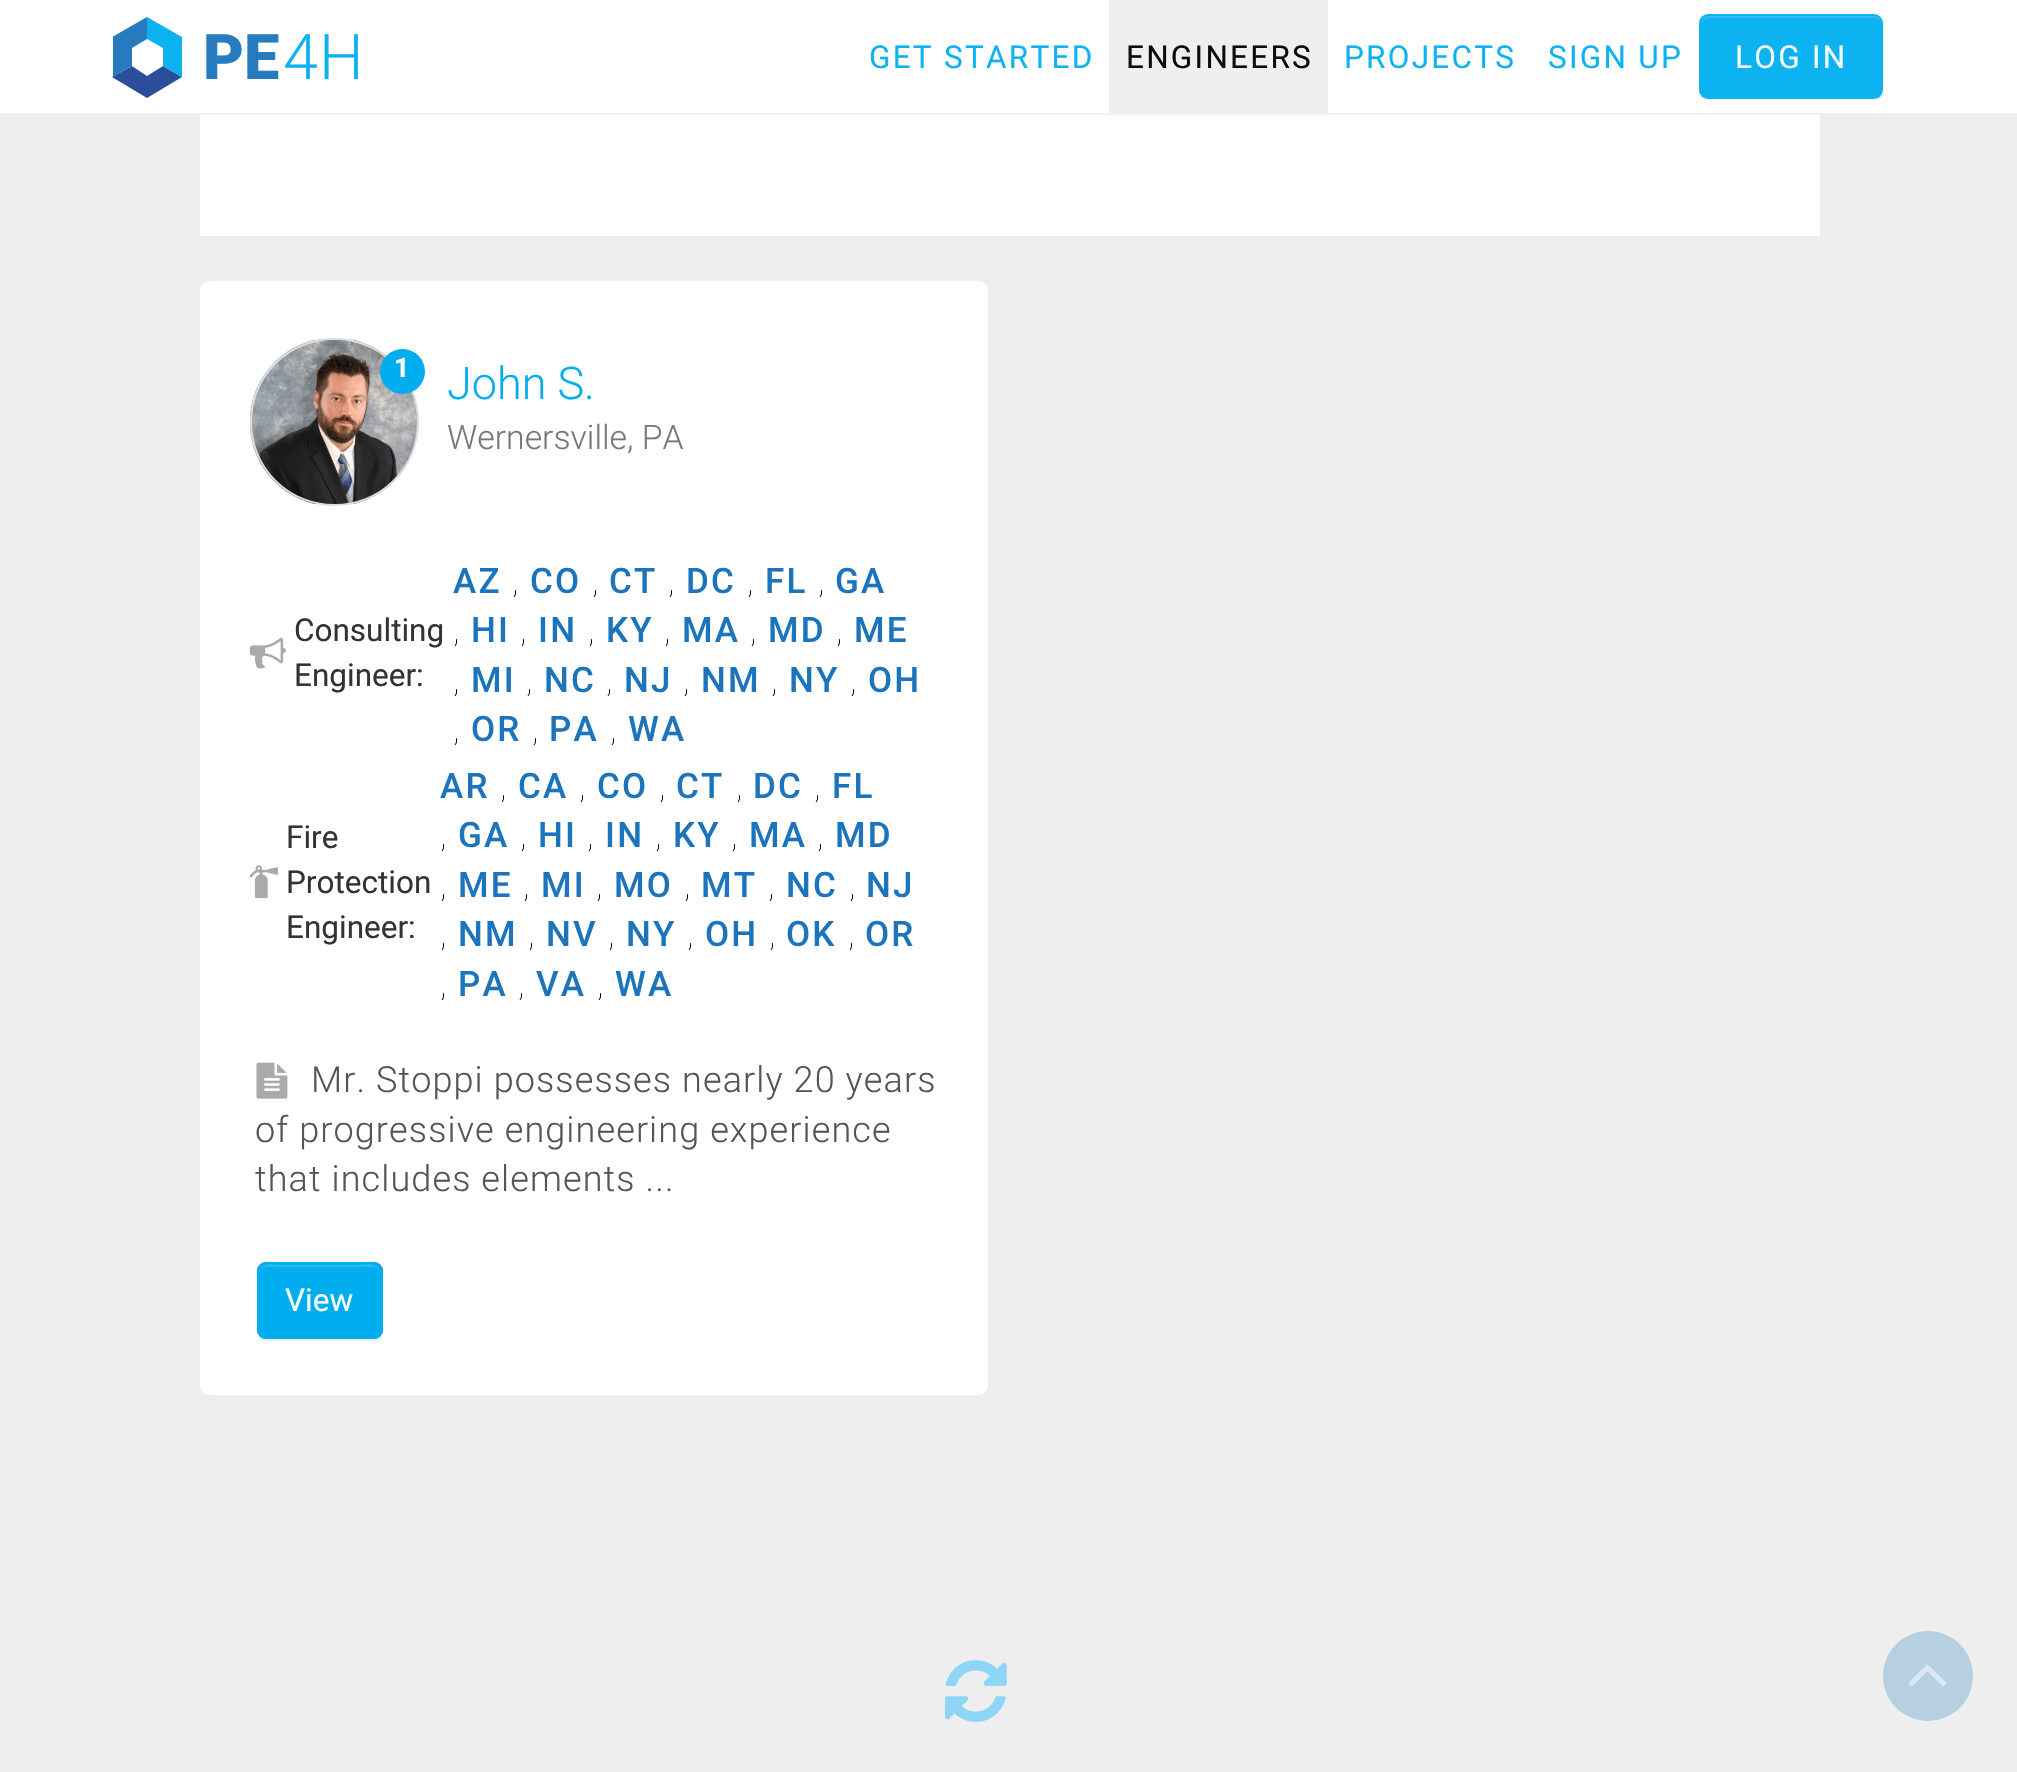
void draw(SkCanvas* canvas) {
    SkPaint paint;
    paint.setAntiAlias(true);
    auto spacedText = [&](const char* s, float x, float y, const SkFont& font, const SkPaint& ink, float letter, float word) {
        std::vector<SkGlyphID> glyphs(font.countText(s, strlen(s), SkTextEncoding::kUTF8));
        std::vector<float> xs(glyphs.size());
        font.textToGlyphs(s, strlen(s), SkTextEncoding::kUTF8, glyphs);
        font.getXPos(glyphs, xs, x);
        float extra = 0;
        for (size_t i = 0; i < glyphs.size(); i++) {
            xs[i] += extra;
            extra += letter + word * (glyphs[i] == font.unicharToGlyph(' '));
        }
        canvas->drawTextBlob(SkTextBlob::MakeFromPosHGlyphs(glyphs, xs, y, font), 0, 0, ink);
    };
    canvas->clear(0xFFEEEEEE);
    paint.setColor(0xFFFFFFFF);
    canvas->drawRect(SkRect::MakeXYWH(200, 0, 1620, 236), paint);
    paint.setColor(0xF2EFEFEF);
    canvas->drawRect(SkRect::MakeXYWH(200, 112, 1620, 3), paint);
    paint.setColor(0xF2FFFFFF);
    canvas->drawRect(SkRect::MakeXYWH(0, 0, 2017, 113), paint);
    paint.setColor(0xFF2B4D9B);
    canvas->drawPath(SkPathBuilder().moveTo(163, 66).lineTo(147, 76).lineTo(132, 66).lineTo(112, 77).lineTo(147, 98).lineTo(182, 77).close().detach(), paint);
    paint.setColor(0xFF0CB1EF);
    canvas->drawPath(SkPathBuilder().moveTo(147, 17).lineTo(147, 39).lineTo(163, 48).lineTo(163, 66).lineTo(182, 77).lineTo(182, 37).close().detach(), paint);
    canvas->save();
    canvas->clipRect(SkRect::MakeXYWH(113, 14, 69, 87));
    paint.setColor(0xFF277BBF);
    canvas->drawPath(SkPathBuilder().moveTo(132, 48).lineTo(147, 39).lineTo(147, 17).lineTo(112, 37).lineTo(112, 77).lineTo(132, 66).close().detach(), paint);
    canvas->restore();
    SkFont font1(fontMgr->matchFamilyStyle("Roboto", SkFontStyle(900, SkFontStyle::kNormal_Width, SkFontStyle::kUpright_Slant)), 63);
    font1.setSubpixel(true);
    paint.setColor(0xFF277CBF);
    canvas->drawString("PE", 203, 79, font1, paint);
    SkFont font2(fontMgr->matchFamilyStyle("Roboto", SkFontStyle(300, SkFontStyle::kNormal_Width, SkFontStyle::kUpright_Slant)), 63);
    font2.setSubpixel(true);
    paint.setColor(0xFF0DB2F0);
    canvas->drawString("4", 283, 79, font2, paint);
    canvas->drawString("H", 319, 79, font2, paint);
    SkFont font3(fontMgr->matchFamilyStyle("Roboto", SkFontStyle::Normal()), 31.5f);
    font3.setSubpixel(true);
    spacedText("GET STARTED", 869, 68, font3, paint, 2.25f, 0);
    paint.setColor(0xF2EEEEEE);
    canvas->drawRect(SkRect::MakeXYWH(1109, 0, 219, 113), paint);
    paint.setColor(0xFF0C0C0C);
    spacedText("ENGINEERS", 1126, 68, font3, paint, 2.25f, 0);
    paint.setColor(0xFF0DB2F0);
    spacedText("PROJECTS", 1344, 68, font3, paint, 2.25f, 0);
    spacedText("SIGN UP", 1548, 68, font3, paint, 2.25f, 0);
    canvas->save();
    canvas->clipRect(SkRect::MakeXYWH(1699, 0, 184, 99));
    canvas->clipPath(SkPathBuilder(SkPathFillType::kEvenOdd).moveTo(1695, 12).lineTo(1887, 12).lineTo(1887, 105).lineTo(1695, 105).close().moveTo(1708, 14).lineTo(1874, 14).cubicTo(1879, 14, 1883, 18, 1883, 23).lineTo(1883, 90).cubicTo(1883, 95, 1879, 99, 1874, 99).lineTo(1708, 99).cubicTo(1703, 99, 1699, 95, 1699, 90).lineTo(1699, 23).cubicTo(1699, 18, 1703, 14, 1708, 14).close().detach(), true);
    paint.setColor(0x12000000);
    paint.setMaskFilter(SkMaskFilter::MakeBlur(kNormal_SkBlurStyle, 1));
    canvas->drawRoundRect(SkRect::MakeXYWH(1699, 16, 184, 85), 9, 9, paint);
    paint.setMaskFilter(nullptr);
    canvas->restore();
    paint.setColor(0xF200AEEF);
    canvas->drawRoundRect(SkRect::MakeXYWH(1699, 14, 184, 85), 9, 9, paint);
    paint.setColor(0xFF2FBDF2);
    canvas->drawPath(SkPathBuilder().moveTo(1708, 18).lineTo(1874, 18).cubicTo(1878, 18, 1881, 21, 1881, 25).lineTo(1881, 23).cubicTo(1881, 19, 1878, 16, 1874, 16).lineTo(1708, 16).cubicTo(1704, 16, 1701, 19, 1701, 23).lineTo(1701, 25).cubicTo(1701, 21, 1704, 18, 1708, 18).close().detach(), paint);
    paint.setColor(0xFFF3FBFE);
    spacedText("LOG IN", 1735, 68, font3, paint, 2.25f, 0);
    paint.setColor(0xFFFFFFFF);
    canvas->drawRoundRect(SkRect::MakeXYWH(200, 281, 788, 1114), 9, 9, paint);
    canvas->drawImageRect(SkImages::DeferredFromEncodedData(SkData::MakeFromFileName("img1.png")), SkRect::MakeXYWH(249, 339, 170, 165), SkSamplingOptions());
    paint.setStyle(SkPaint::kStroke_Style);
    paint.setStrokeWidth(2);
    paint.setColor(0xFFDDDDDD);
    canvas->drawRoundRect(SkRect::MakeXYWH(251, 339, 167, 166), 83, 83, paint);
    paint.setStyle(SkPaint::kFill_Style);
    paint.setColor(0xFF00AEEF);
    canvas->drawCircle(402.5f, 371.5f, 22.5f, paint);
    SkFont font4(fontMgr->matchFamilyStyle("Roboto", SkFontStyle::Bold()), 27);
    font4.setSubpixel(true);
    paint.setColor(0xFFFFFFFF);
    canvas->drawString("1", 394, 377, font4, paint);
    SkFont font5(fontMgr->matchFamilyStyle("Roboto", SkFontStyle(300, SkFontStyle::kNormal_Width, SkFontStyle::kUpright_Slant)), 45);
    font5.setSubpixel(true);
    paint.setColor(0xFF00AEEF);
    canvas->drawString("John S.", 447, 399, font5, paint);
    SkFont font6(fontMgr->matchFamilyStyle("Roboto", SkFontStyle(300, SkFontStyle::kNormal_Width, SkFontStyle::kUpright_Slant)), 33.75f);
    font6.setSubpixel(true);
    paint.setColor(0xFF777777);
    canvas->drawString("Wernersville, PA", 447, 449, font6, paint);
    canvas->drawImageRect(SkImages::DeferredFromEncodedData(SkData::MakeFromFileName("img2.png")), SkRect::MakeXYWH(249, 637, 37, 32), SkSamplingOptions());
    paint.setColor(0xFF333333);
    canvas->drawString("Consulting", 294, 641, font3, paint);
    canvas->drawString("Engineer:", 294, 686, font3, paint);
    SkFont font7(fontMgr->matchFamilyStyle("Roboto", SkFontStyle(500, SkFontStyle::kNormal_Width, SkFontStyle::kUpright_Slant)), 35);
    font7.setSubpixel(true);
    paint.setColor(0xFF1C75BC);
    spacedText("AZ", 453, 593, font7, paint, 2.25f, 0);
    SkFont font8(fontMgr->matchFamilyStyle("Roboto", SkFontStyle(100, SkFontStyle::kNormal_Width, SkFontStyle::kUpright_Slant)), 35);
    font8.setSubpixel(true);
    paint.setColor(0xFF000000);
    spacedText(",", 512, 593, font8, paint, 2.25f, 0);
    paint.setColor(0xFF1C75BC);
    spacedText("CO", 530, 593, font7, paint, 2.25f, 0);
    paint.setColor(0xFF000000);
    spacedText(",", 592, 593, font8, paint, 2.25f, 0);
    paint.setColor(0xFF1C75BC);
    spacedText("CT", 609, 593, font7, paint, 2.25f, 0);
    paint.setColor(0xFF000000);
    spacedText(",", 668, 593, font8, paint, 2.25f, 0);
    paint.setColor(0xFF1C75BC);
    spacedText("DC", 686, 593, font7, paint, 2.25f, 0);
    paint.setColor(0xFF000000);
    spacedText(",", 747, 593, font8, paint, 2.25f, 0);
    paint.setColor(0xFF1C75BC);
    spacedText("FL", 765, 593, font7, paint, 2.25f, 0);
    paint.setColor(0xFF000000);
    spacedText(",", 818, 593, font8, paint, 2.25f, 0);
    paint.setColor(0xFF1C75BC);
    spacedText("GA", 835, 593, font7, paint, 2.25f, 0);
    spacedText("HI", 471, 642, font7, paint, 2.25f, 0);
    spacedText("IN", 538, 642, font7, paint, 2.25f, 0);
    spacedText("KY", 606, 642, font7, paint, 2.25f, 0);
    spacedText("MA", 682, 642, font7, paint, 2.25f, 0);
    spacedText("MD", 768, 642, font7, paint, 2.25f, 0);
    spacedText("ME", 854, 642, font7, paint, 2.25f, 0);
    paint.setColor(0xFF000000);
    spacedText(",", 453, 642, font8, paint, 2.25f, 0);
    spacedText(",", 520, 642, font8, paint, 2.25f, 0);
    spacedText(",", 588, 642, font8, paint, 2.25f, 0);
    spacedText(",", 664, 642, font8, paint, 2.25f, 0);
    spacedText(",", 750, 642, font8, paint, 2.25f, 0);
    spacedText(",", 836, 642, font8, paint, 2.25f, 0);
    spacedText(",", 453, 692, font8, paint, 2.25f, 0);
    paint.setColor(0xFF1C75BC);
    spacedText("MI", 471, 692, font7, paint, 2.25f, 0);
    paint.setColor(0xFF000000);
    spacedText(",", 526, 692, font8, paint, 2.25f, 0);
    paint.setColor(0xFF1C75BC);
    spacedText("NC", 544, 692, font7, paint, 2.25f, 0);
    paint.setColor(0xFF000000);
    spacedText(",", 606, 692, font8, paint, 2.25f, 0);
    paint.setColor(0xFF1C75BC);
    spacedText("NJ", 624, 692, font7, paint, 2.25f, 0);
    paint.setColor(0xFF000000);
    spacedText(",", 683, 692, font8, paint, 2.25f, 0);
    paint.setColor(0xFF1C75BC);
    spacedText("NM", 701, 692, font7, paint, 2.25f, 0);
    paint.setColor(0xFF000000);
    spacedText(",", 771, 692, font8, paint, 2.25f, 0);
    paint.setColor(0xFF1C75BC);
    spacedText("NY", 789, 692, font7, paint, 2.25f, 0);
    paint.setColor(0xFF000000);
    spacedText(",", 850, 692, font8, paint, 2.25f, 0);
    paint.setColor(0xFF1C75BC);
    spacedText("OH", 868, 692, font7, paint, 2.25f, 0);
    spacedText("OR", 471, 741, font7, paint, 2.25f, 0);
    spacedText("PA", 549, 741, font7, paint, 2.25f, 0);
    spacedText("WA", 628, 741, font7, paint, 2.25f, 0);
    paint.setColor(0xFF000000);
    spacedText(",", 453, 741, font8, paint, 2.25f, 0);
    spacedText(",", 532, 741, font8, paint, 2.25f, 0);
    spacedText(",", 610, 741, font8, paint, 2.25f, 0);
    canvas->drawImageRect(SkImages::DeferredFromEncodedData(SkData::MakeFromFileName("img3.png")), SkRect::MakeXYWH(249, 865, 29, 34), SkSamplingOptions());
    paint.setColor(0xFF333333);
    canvas->drawString("Fire", 286, 848, font3, paint);
    canvas->drawString("Protection", 286, 893, font3, paint);
    canvas->drawString("Engineer:", 286, 938, font3, paint);
    paint.setColor(0xFF1C75BC);
    spacedText("AR", 440, 798, font7, paint, 2.25f, 0);
    spacedText("CA", 518, 798, font7, paint, 2.25f, 0);
    spacedText("CO", 597, 798, font7, paint, 2.25f, 0);
    spacedText("CT", 676, 798, font7, paint, 2.25f, 0);
    spacedText("DC", 753, 798, font7, paint, 2.25f, 0);
    spacedText("FL", 832, 798, font7, paint, 2.25f, 0);
    paint.setColor(0xFF000000);
    spacedText(",", 500, 798, font8, paint, 2.25f, 0);
    spacedText(",", 579, 798, font8, paint, 2.25f, 0);
    spacedText(",", 659, 798, font8, paint, 2.25f, 0);
    spacedText(",", 736, 798, font8, paint, 2.25f, 0);
    spacedText(",", 814, 798, font8, paint, 2.25f, 0);
    paint.setColor(0xFF1C75BC);
    spacedText("GA", 458, 847, font7, paint, 2.25f, 0);
    spacedText("HI", 538, 847, font7, paint, 2.25f, 0);
    spacedText("IN", 605, 847, font7, paint, 2.25f, 0);
    spacedText("KY", 673, 847, font7, paint, 2.25f, 0);
    spacedText("MA", 749, 847, font7, paint, 2.25f, 0);
    spacedText("MD", 835, 847, font7, paint, 2.25f, 0);
    paint.setColor(0xFF000000);
    spacedText(",", 440, 847, font8, paint, 2.25f, 0);
    spacedText(",", 520, 847, font8, paint, 2.25f, 0);
    spacedText(",", 587, 847, font8, paint, 2.25f, 0);
    spacedText(",", 655, 847, font8, paint, 2.25f, 0);
    spacedText(",", 731, 847, font8, paint, 2.25f, 0);
    spacedText(",", 817, 847, font8, paint, 2.25f, 0);
    spacedText(",", 440, 897, font8, paint, 2.25f, 0);
    paint.setColor(0xFF1C75BC);
    spacedText("ME", 458, 897, font7, paint, 2.25f, 0);
    paint.setColor(0xFF000000);
    spacedText(",", 523, 897, font8, paint, 2.25f, 0);
    paint.setColor(0xFF1C75BC);
    spacedText("MI", 541, 897, font7, paint, 2.25f, 0);
    paint.setColor(0xFF000000);
    spacedText(",", 596, 897, font8, paint, 2.25f, 0);
    paint.setColor(0xFF1C75BC);
    spacedText("MO", 614, 897, font7, paint, 2.25f, 0);
    paint.setColor(0xFF000000);
    spacedText(",", 684, 897, font8, paint, 2.25f, 0);
    paint.setColor(0xFF1C75BC);
    spacedText("MT", 701, 897, font7, paint, 2.25f, 0);
    paint.setColor(0xFF000000);
    spacedText(",", 768, 897, font8, paint, 2.25f, 0);
    paint.setColor(0xFF1C75BC);
    spacedText("NC", 786, 897, font7, paint, 2.25f, 0);
    paint.setColor(0xFF000000);
    spacedText(",", 849, 897, font8, paint, 2.25f, 0);
    paint.setColor(0xFF1C75BC);
    spacedText("NJ", 866, 897, font7, paint, 2.25f, 0);
    paint.setColor(0xFF000000);
    spacedText(",", 440, 946, font8, paint, 2.25f, 0);
    paint.setColor(0xFF1C75BC);
    spacedText("NM", 458, 946, font7, paint, 2.25f, 0);
    paint.setColor(0xFF000000);
    spacedText(",", 528, 946, font8, paint, 2.25f, 0);
    paint.setColor(0xFF1C75BC);
    spacedText("NV", 546, 946, font7, paint, 2.25f, 0);
    paint.setColor(0xFF000000);
    spacedText(",", 608, 946, font8, paint, 2.25f, 0);
    paint.setColor(0xFF1C75BC);
    spacedText("NY", 626, 946, font7, paint, 2.25f, 0);
    paint.setColor(0xFF000000);
    spacedText(",", 687, 946, font8, paint, 2.25f, 0);
    paint.setColor(0xFF1C75BC);
    spacedText("OH", 705, 946, font7, paint, 2.25f, 0);
    paint.setColor(0xFF000000);
    spacedText(",", 769, 946, font8, paint, 2.25f, 0);
    paint.setColor(0xFF1C75BC);
    spacedText("OK", 786, 946, font7, paint, 2.25f, 0);
    paint.setColor(0xFF000000);
    spacedText(",", 848, 946, font8, paint, 2.25f, 0);
    paint.setColor(0xFF1C75BC);
    spacedText("OR", 865, 946, font7, paint, 2.25f, 0);
    spacedText("PA", 458, 996, font7, paint, 2.25f, 0);
    spacedText("VA", 536, 996, font7, paint, 2.25f, 0);
    spacedText("WA", 615, 996, font7, paint, 2.25f, 0);
    paint.setColor(0xFF000000);
    spacedText(",", 440, 996, font8, paint, 2.25f, 0);
    spacedText(",", 518, 996, font8, paint, 2.25f, 0);
    spacedText(",", 597, 996, font8, paint, 2.25f, 0);
    canvas->drawImageRect(SkImages::DeferredFromEncodedData(SkData::MakeFromFileName("img4.png")), SkRect::MakeXYWH(256, 1062, 32, 37), SkSamplingOptions());
    SkFont font9(fontMgr->matchFamilyStyle("Roboto", SkFontStyle(300, SkFontStyle::kNormal_Width, SkFontStyle::kUpright_Slant)), 36);
    font9.setSubpixel(true);
    paint.setColor(0xFF555555);
    spacedText("Mr. Stoppi possesses nearly 20 years", 311, 1092, font9, paint, 1.1f, 0);
    spacedText("of progressive engineering experience", 255, 1142, font9, paint, 1.1f, 0);
    spacedText("that includes elements ...", 255, 1191, font9, paint, 1.1f, 0);
    paint.setColor(0x12000000);
    paint.setMaskFilter(SkMaskFilter::MakeBlur(kNormal_SkBlurStyle, 1));
    canvas->drawRoundRect(SkRect::MakeXYWH(257, 1265, 126, 76), 9, 9, paint);
    paint.setMaskFilter(nullptr);
    paint.setColor(0xFF00AEEF);
    canvas->drawRoundRect(SkRect::MakeXYWH(257, 1262, 126, 77), 9, 9, paint);
    paint.setColor(0xFF26BAF1);
    canvas->drawPath(SkPathBuilder().moveTo(266, 1267).lineTo(374, 1267).cubicTo(377, 1267, 380, 1270, 380, 1274).cubicTo(380, 1260, 365, 1265, 355, 1265).lineTo(284, 1265).cubicTo(274, 1265, 259, 1260, 259, 1274).cubicTo(259, 1270, 262, 1267, 266, 1267).close().detach(), paint);
    paint.setStyle(SkPaint::kStroke_Style);
    paint.setColor(0xFF00AEEF);
    canvas->drawRoundRect(SkRect::MakeXYWH(258, 1263, 124, 75), 8, 8, paint);
    paint.setStyle(SkPaint::kFill_Style);
    paint.setColor(0xFFFFFFFF);
    canvas->drawString("View", 285, 1311, font3, paint);
    canvas->drawImageRect(SkImages::DeferredFromEncodedData(SkData::MakeFromFileName("img5.png")), SkRect::MakeXYWH(945, 1660, 62, 62), SkSamplingOptions());
    paint.setColor(0xFFB6D0E2);
    canvas->drawCircle(1928, 1676, 45, paint);
    canvas->drawImageRect(SkImages::DeferredFromEncodedData(SkData::MakeFromFileName("img6.png")), SkRect::MakeXYWH(1908, 1664, 39, 23), SkSamplingOptions());
}
